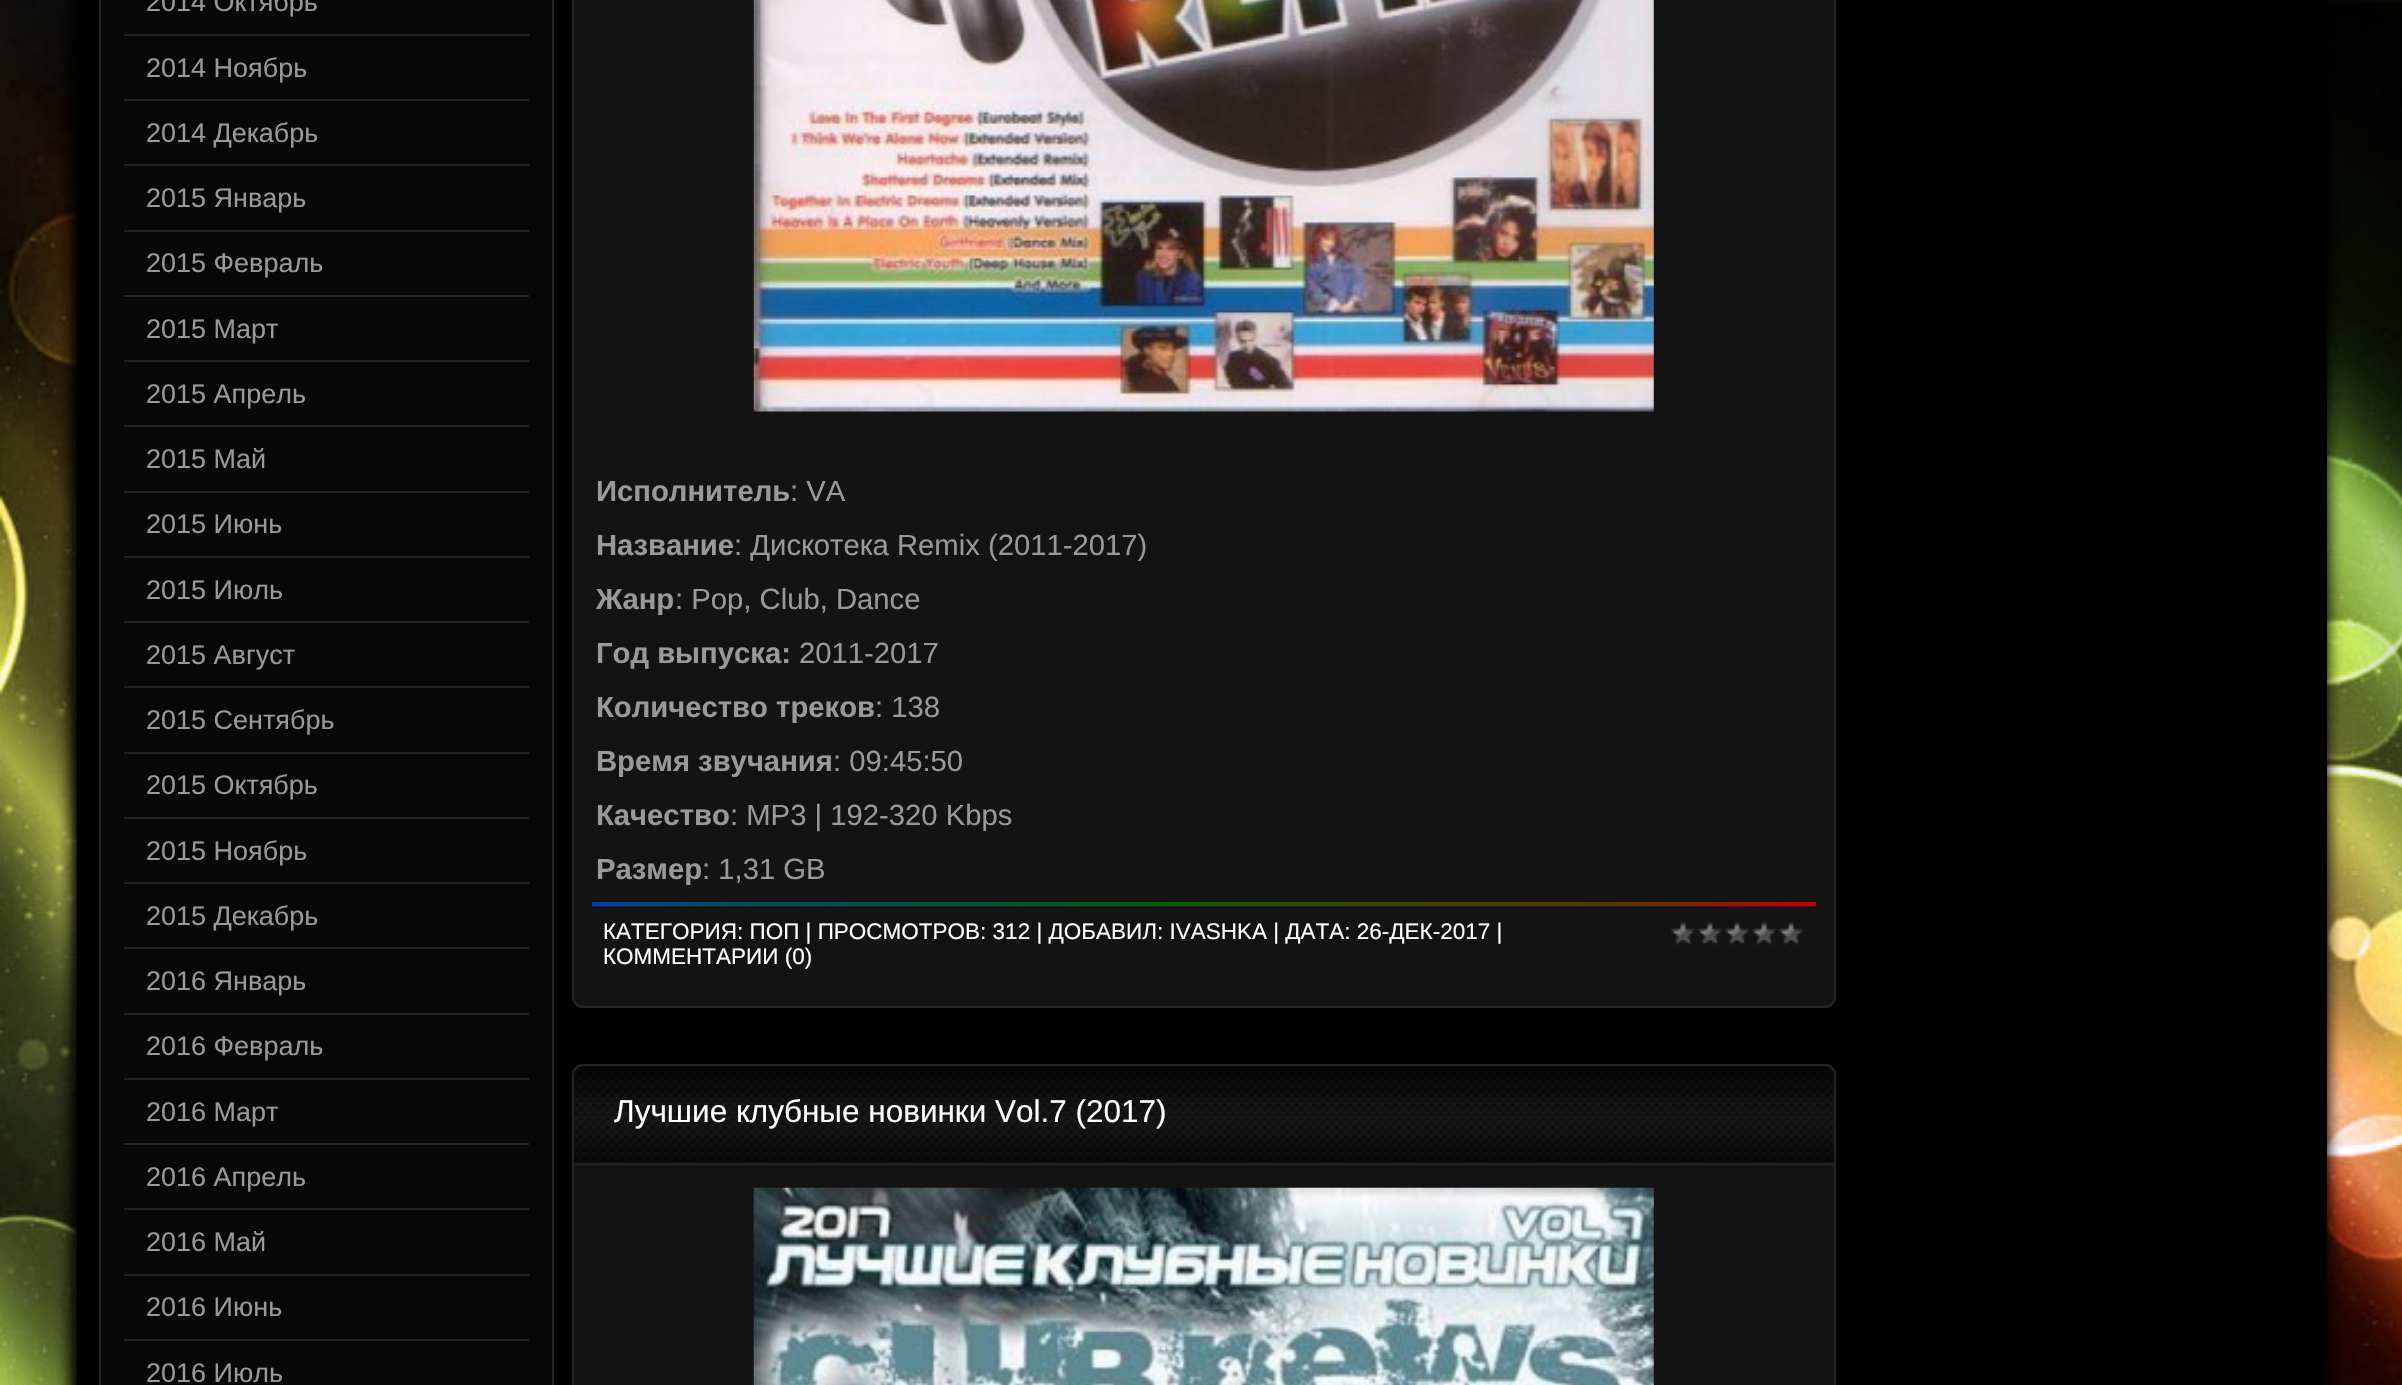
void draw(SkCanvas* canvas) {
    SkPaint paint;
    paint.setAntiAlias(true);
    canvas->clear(0xFFFFFFFF);
    canvas->drawImageRect(SkImages::DeferredFromEncodedData(SkData::MakeFromFileName("img1.png")), SkRect::MakeXYWH(0, 0, 2402, 1385), SkSamplingOptions());
    paint.setColor(0xFF000000);
    canvas->drawRect(SkRect::MakeXYWH(77, 0, 2250, 1385), paint);
    paint.setColor(0xFF070707);
    canvas->drawRect(SkRect::MakeXYWH(100, -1, 453, 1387), paint);
    paint.setStyle(SkPaint::kStroke_Style);
    paint.setStrokeWidth(2);
    paint.setColor(0xFF252525);
    canvas->drawRect(SkRect::MakeXYWH(100, -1, 453, 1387), paint);
    paint.setStyle(SkPaint::kFill_Style);
    paint.setColor(0xFF222222);
    canvas->drawRect(SkRect::MakeXYWH(124, 34, 405, 2), paint);
    SkFont font1(fontMgr->matchFamilyStyle("Liberation Sans", SkFontStyle::Normal()), 27);
    font1.setSubpixel(true);
    paint.setColor(0xFF999999);
    canvas->drawString("2014 Октябрь", 146, 11, font1, paint);
    paint.setColor(0xFF222222);
    canvas->drawRect(SkRect::MakeXYWH(124, 99, 405, 2), paint);
    paint.setColor(0xFF999999);
    canvas->drawString("2014 Ноябрь", 146, 77, font1, paint);
    paint.setColor(0xFF222222);
    canvas->drawRect(SkRect::MakeXYWH(124, 164, 405, 2), paint);
    paint.setColor(0xFF999999);
    canvas->drawString("2014 Декабрь", 146, 142, font1, paint);
    paint.setColor(0xFF222222);
    canvas->drawRect(SkRect::MakeXYWH(124, 230, 405, 2), paint);
    paint.setColor(0xFF999999);
    canvas->drawString("2015 Январь", 146, 207, font1, paint);
    paint.setColor(0xFF222222);
    canvas->drawRect(SkRect::MakeXYWH(124, 295, 405, 2), paint);
    paint.setColor(0xFF999999);
    canvas->drawString("2015 Февраль", 146, 272, font1, paint);
    paint.setColor(0xFF222222);
    canvas->drawRect(SkRect::MakeXYWH(124, 360, 405, 2), paint);
    paint.setColor(0xFF999999);
    canvas->drawString("2015 Март", 146, 338, font1, paint);
    paint.setColor(0xFF222222);
    canvas->drawRect(SkRect::MakeXYWH(124, 425, 405, 2), paint);
    paint.setColor(0xFF999999);
    canvas->drawString("2015 Апрель", 146, 403, font1, paint);
    paint.setColor(0xFF222222);
    canvas->drawRect(SkRect::MakeXYWH(124, 491, 405, 2), paint);
    paint.setColor(0xFF999999);
    canvas->drawString("2015 Май", 146, 468, font1, paint);
    paint.setColor(0xFF222222);
    canvas->drawRect(SkRect::MakeXYWH(124, 556, 405, 2), paint);
    paint.setColor(0xFF999999);
    canvas->drawString("2015 Июнь", 146, 533, font1, paint);
    paint.setColor(0xFF222222);
    canvas->drawRect(SkRect::MakeXYWH(124, 621, 405, 2), paint);
    paint.setColor(0xFF999999);
    canvas->drawString("2015 Июль", 146, 599, font1, paint);
    paint.setColor(0xFF222222);
    canvas->drawRect(SkRect::MakeXYWH(124, 686, 405, 2), paint);
    paint.setColor(0xFF999999);
    canvas->drawString("2015 Август", 146, 664, font1, paint);
    paint.setColor(0xFF222222);
    canvas->drawRect(SkRect::MakeXYWH(124, 752, 405, 2), paint);
    paint.setColor(0xFF999999);
    canvas->drawString("2015 Сентябрь", 146, 729, font1, paint);
    paint.setColor(0xFF222222);
    canvas->drawRect(SkRect::MakeXYWH(124, 817, 405, 2), paint);
    paint.setColor(0xFF999999);
    canvas->drawString("2015 Октябрь", 146, 794, font1, paint);
    paint.setColor(0xFF222222);
    canvas->drawRect(SkRect::MakeXYWH(124, 882, 405, 2), paint);
    paint.setColor(0xFF999999);
    canvas->drawString("2015 Ноябрь", 146, 860, font1, paint);
    paint.setColor(0xFF222222);
    canvas->drawRect(SkRect::MakeXYWH(124, 947, 405, 2), paint);
    paint.setColor(0xFF999999);
    canvas->drawString("2015 Декабрь", 146, 925, font1, paint);
    paint.setColor(0xFF222222);
    canvas->drawRect(SkRect::MakeXYWH(124, 1013, 405, 2), paint);
    paint.setColor(0xFF999999);
    canvas->drawString("2016 Январь", 146, 990, font1, paint);
    paint.setColor(0xFF222222);
    canvas->drawRect(SkRect::MakeXYWH(124, 1078, 405, 2), paint);
    paint.setColor(0xFF999999);
    canvas->drawString("2016 Февраль", 146, 1055, font1, paint);
    paint.setColor(0xFF222222);
    canvas->drawRect(SkRect::MakeXYWH(124, 1143, 405, 2), paint);
    paint.setColor(0xFF999999);
    canvas->drawString("2016 Март", 146, 1121, font1, paint);
    paint.setColor(0xFF222222);
    canvas->drawRect(SkRect::MakeXYWH(124, 1208, 405, 2), paint);
    paint.setColor(0xFF999999);
    canvas->drawString("2016 Апрель", 146, 1186, font1, paint);
    paint.setColor(0xFF222222);
    canvas->drawRect(SkRect::MakeXYWH(124, 1274, 405, 2), paint);
    paint.setColor(0xFF999999);
    canvas->drawString("2016 Май", 146, 1251, font1, paint);
    paint.setColor(0xFF222222);
    canvas->drawRect(SkRect::MakeXYWH(124, 1339, 405, 2), paint);
    paint.setColor(0xFF999999);
    canvas->drawString("2016 Июнь", 146, 1316, font1, paint);
    canvas->drawString("2016 Июль", 146, 1382, font1, paint);
    paint.setColor(0xFF131313);
    canvas->drawRoundRect(SkRect::MakeXYWH(573, -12, 1262, 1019), 10, 10, paint);
    paint.setStyle(SkPaint::kStroke_Style);
    paint.setColor(0xFF252525);
    canvas->drawRoundRect(SkRect::MakeXYWH(573, -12, 1262, 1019), 10, 10, paint);
    canvas->drawImageRect(SkImages::DeferredFromEncodedData(SkData::MakeFromFileName("img2.png")), SkRect::MakeXYWH(753, 0, 901, 412), SkSamplingOptions());
    SkFont font2(fontMgr->matchFamilyStyle("Liberation Sans", SkFontStyle::Bold()), 29.25f);
    font2.setSubpixel(true);
    paint.setStyle(SkPaint::kFill_Style);
    paint.setColor(0xFF999999);
    canvas->drawString("Исполнитель", 596, 501, font2, paint);
    SkFont font3(fontMgr->matchFamilyStyle("Liberation Sans", SkFontStyle::Normal()), 29.25f);
    font3.setSubpixel(true);
    canvas->drawString(": VA", 790, 501, font3, paint);
    canvas->drawString("Название", 596, 555, font2, paint);
    canvas->drawString(": Дискотека Remix (2011-2017)", 734, 555, font3, paint);
    canvas->drawString("Жанр", 596, 609, font2, paint);
    canvas->drawString(": Pop, Club, Dance", 675, 609, font3, paint);
    canvas->drawString("Год выпуска:", 596, 663, font2, paint);
    canvas->drawString("2011-2017", 799, 663, font3, paint);
    canvas->drawString("Количество треков", 596, 717, font2, paint);
    canvas->drawString(": 138", 875, 717, font3, paint);
    canvas->drawString("Время звучания", 596, 771, font2, paint);
    canvas->drawString(": 09:45:50", 833, 771, font3, paint);
    canvas->drawString("Качество", 596, 825, font2, paint);
    canvas->drawString(": MP3 | 192-320 Kbps", 730, 825, font3, paint);
    canvas->drawString("Размер", 596, 879, font2, paint);
    canvas->drawString(": 1,31 GB", 702, 879, font3, paint);
    canvas->drawImageRect(SkImages::DeferredFromEncodedData(SkData::MakeFromFileName("img3.png")), SkRect::MakeXYWH(591, 902, 1225, 5), SkSamplingOptions());
    SkFont font4(fontMgr->matchFamilyStyle("Liberation Sans", SkFontStyle::Normal()), 22.5f);
    font4.setSubpixel(true);
    paint.setColor(0xFFFFFFFF);
    canvas->drawString("КАТЕГОРИЯ: ПОП | ПРОСМОТРОВ: 312 | ДОБАВИЛ: IVASHKA | ДАТА: 26-ДЕК-2017 |", 603, 939, font4, paint);
    canvas->drawImageRect(SkImages::DeferredFromEncodedData(SkData::MakeFromFileName("img4.png")), SkRect::MakeXYWH(1671, 921, 132, 24), SkSamplingOptions());
    canvas->drawString("КОММЕНТАРИИ (0)", 603, 964, font4, paint);
    paint.setColor(0xFF131313);
    canvas->drawRoundRect(SkRect::MakeXYWH(572, 1064, 1264, 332), 11, 11, paint);
    canvas->drawImageRect(SkImages::DeferredFromEncodedData(SkData::MakeFromFileName("img5.png")), SkRect::MakeXYWH(571, 1066, 1265, 100), SkSamplingOptions());
    paint.setStyle(SkPaint::kStroke_Style);
    paint.setColor(0xFF252525);
    canvas->drawRoundRect(SkRect::MakeXYWH(573, 1065, 1262, 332), 10, 10, paint);
    SkFont font5(fontMgr->matchFamilyStyle("Liberation Sans", SkFontStyle::Normal()), 31.5f);
    font5.setSubpixel(true);
    paint.setStyle(SkPaint::kFill_Style);
    paint.setColor(0xFFFFFFFF);
    canvas->drawString("Лучшие клубные новинки Vol.7 (2017)", 614, 1122, font5, paint);
    canvas->drawImageRect(SkImages::DeferredFromEncodedData(SkData::MakeFromFileName("img6.png")), SkRect::MakeXYWH(753, 1187, 901, 198), SkSamplingOptions());
}
